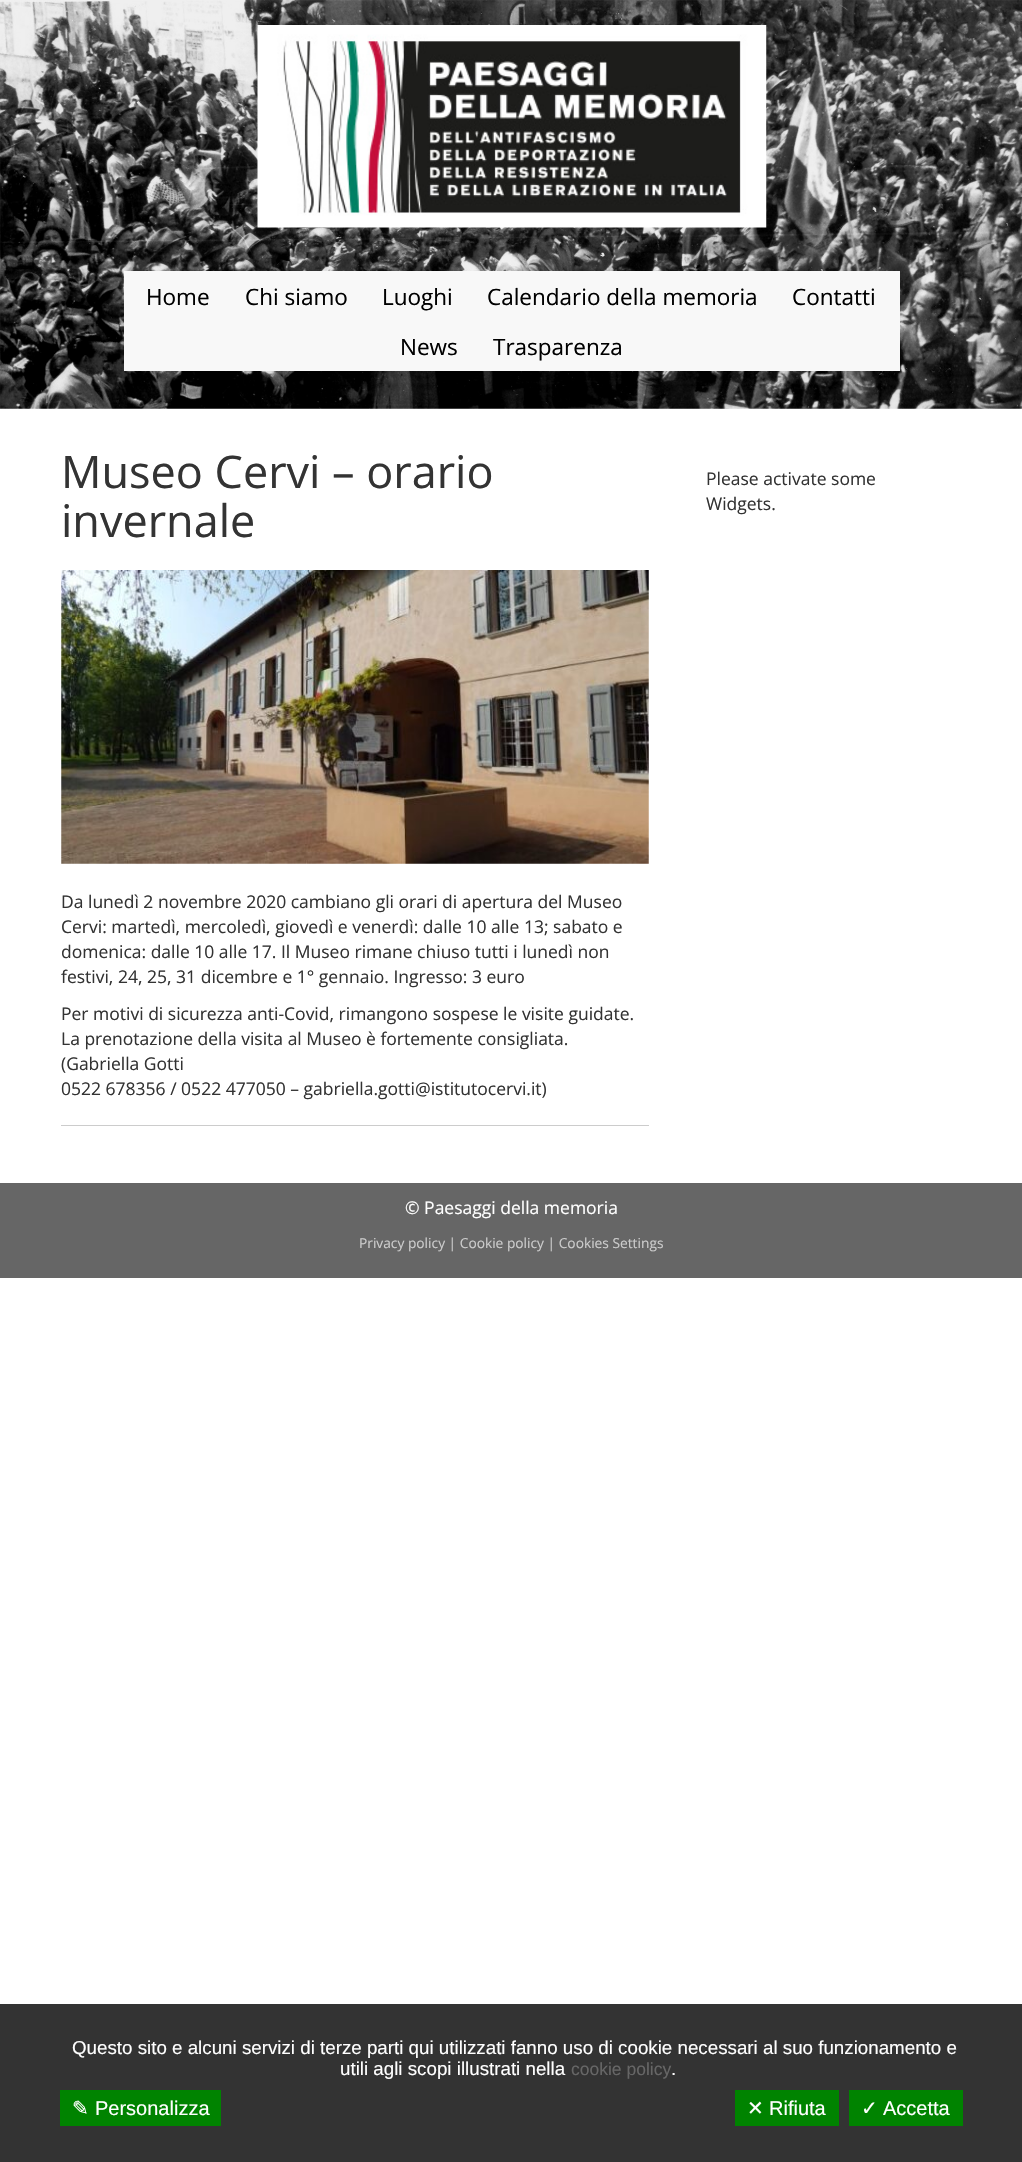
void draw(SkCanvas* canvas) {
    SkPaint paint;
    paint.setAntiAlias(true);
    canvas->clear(0xFFFFFFFF);
    canvas->drawImageRect(SkImages::DeferredFromEncodedData(SkData::MakeFromFileName("img1.png")), SkRect::MakeXYWH(0, 0, 1022, 409), SkSamplingOptions());
    canvas->drawImageRect(SkImages::DeferredFromEncodedData(SkData::MakeFromFileName("img2.png")), SkRect::MakeXYWH(257, 25, 510, 203), SkSamplingOptions());
    paint.setColor(0xFFF8F8F8);
    canvas->drawRect(SkRect::MakeXYWH(124, 271, 776, 100), paint);
    SkFont font1(fontMgr->matchFamilyStyle("Open Sans", SkFontStyle::Normal()), 22.5f);
    font1.setSubpixel(true);
    paint.setColor(0xFF000000);
    canvas->drawString("Home", 146, 305, font1, paint);
    canvas->drawString("Chi siamo", 245, 305, font1, paint);
    canvas->drawString("Luoghi", 382, 305, font1, paint);
    canvas->drawString("Calendario della memoria", 487, 305, font1, paint);
    canvas->drawString("Contatti", 792, 305, font1, paint);
    canvas->drawString("News", 400, 355, font1, paint);
    canvas->drawString("Trasparenza", 493, 355, font1, paint);
    paint.setColor(0xFFCCCCCC);
    canvas->drawRect(SkRect::MakeXYWH(61, 1125, 588, 1), paint);
    SkFont font2(fontMgr->matchFamilyStyle("Open Sans", SkFontStyle::Normal()), 45);
    font2.setSubpixel(true);
    paint.setColor(0xFF333333);
    canvas->drawString("Museo Cervi – orario", 61, 488, font2, paint);
    canvas->drawString("invernale", 61, 537, font2, paint);
    canvas->drawImageRect(SkImages::DeferredFromEncodedData(SkData::MakeFromFileName("img3.png")), SkRect::MakeXYWH(61, 570, 588, 294), SkSamplingOptions());
    SkFont font3(fontMgr->matchFamilyStyle("Open Sans", SkFontStyle::Normal()), 17.5f);
    font3.setSubpixel(true);
    canvas->drawString("Da lunedì 2 novembre 2020 cambiano gli orari di apertura del Museo", 61, 908, font3, paint);
    canvas->drawString("Cervi: martedì, mercoledì, giovedì e venerdì: dalle 10 alle 13; sabato e", 61, 933, font3, paint);
    canvas->drawString("domenica: dalle 10 alle 17. Il Museo rimane chiuso tutti i lunedì non", 61, 958, font3, paint);
    canvas->drawString("festivi, 24, 25, 31 dicembre e 1° gennaio. Ingresso: 3 euro", 61, 983, font3, paint);
    canvas->drawString("Per motivi di sicurezza anti-Covid, rimangono sospese le visite guidate.", 61, 1020, font3, paint);
    canvas->drawString("La prenotazione della visita al Museo è fortemente consigliata.", 61, 1045, font3, paint);
    canvas->drawString("(Gabriella Gotti", 61, 1070, font3, paint);
    canvas->drawString("0522 678356 / 0522 477050 – gabriella.gotti@istitutocervi.it)", 61, 1095, font3, paint);
    canvas->drawString("Please activate some", 706, 485, font3, paint);
    canvas->drawString("Widgets.", 706, 510, font3, paint);
    paint.setColor(0xFF666666);
    canvas->drawRect(SkRect::MakeXYWH(0, 1183, 1022, 95), paint);
    paint.setColor(0xFFFFFFFF);
    canvas->drawString("© Paesaggi della memoria", 405, 1214, font3, paint);
    SkFont font4(fontMgr->matchFamilyStyle("Open Sans", SkFontStyle::Normal()), 13.75f);
    font4.setSubpixel(true);
    paint.setColor(0xFFCCCCCC);
    canvas->drawString("Privacy policy | Cookie policy | Cookies Settings", 359, 1248, font4, paint);
    paint.setColor(0xFF333333);
    canvas->drawRect(SkRect::MakeXYWH(0, 2004, 1022, 158), paint);
    SkFont font5(fontMgr->matchFamilyStyle("Liberation Sans", SkFontStyle::Normal()), 18.75f);
    font5.setSubpixel(true);
    paint.setColor(0xFFFFFFFF);
    canvas->drawString("Questo sito e alcuni servizi di terze parti qui utilizzati fanno uso di cookie necessari al suo funzionamento e", 72, 2054, font5, paint);
    canvas->drawString("utili agli scopi illustrati nella", 340, 2075, font5, paint);
    SkFont font6(fontMgr->matchFamilyStyle("Liberation Sans", SkFontStyle::Normal()), 17.5f);
    font6.setSubpixel(true);
    paint.setColor(0xFF666666);
    canvas->drawString("cookie policy", 571, 2075, font6, paint);
    paint.setColor(0xFFFFFFFF);
    canvas->drawString(".", 671, 2075, font5, paint);
    paint.setColor(0xFF008300);
    canvas->drawRect(SkRect::MakeXYWH(60, 2090, 161, 36), paint);
    SkFont font7(fontMgr->matchFamilyStyle("DejaVu Sans", SkFontStyle::Normal()), 20);
    font7.setSubpixel(true);
    paint.setColor(0xFFFFFFFF);
    canvas->drawString("✎", 72, 2115, font7, paint);
    SkFont font8(fontMgr->matchFamilyStyle("Liberation Sans", SkFontStyle::Normal()), 20);
    font8.setSubpixel(true);
    canvas->drawString("Personalizza", 95, 2115, font8, paint);
    paint.setColor(0xFF008300);
    canvas->drawRect(SkRect::MakeXYWH(735, 2090, 104, 36), paint);
    paint.setColor(0xFFFFFFFF);
    canvas->drawString("✕", 747, 2115, font7, paint);
    canvas->drawString("Rifiuta", 769, 2115, font8, paint);
    paint.setColor(0xFF008300);
    canvas->drawRect(SkRect::MakeXYWH(849, 2090, 114, 36), paint);
    paint.setColor(0xFFFFFFFF);
    canvas->drawString("✓", 861, 2115, font7, paint);
    canvas->drawString("Accetta", 883, 2115, font8, paint);
}
